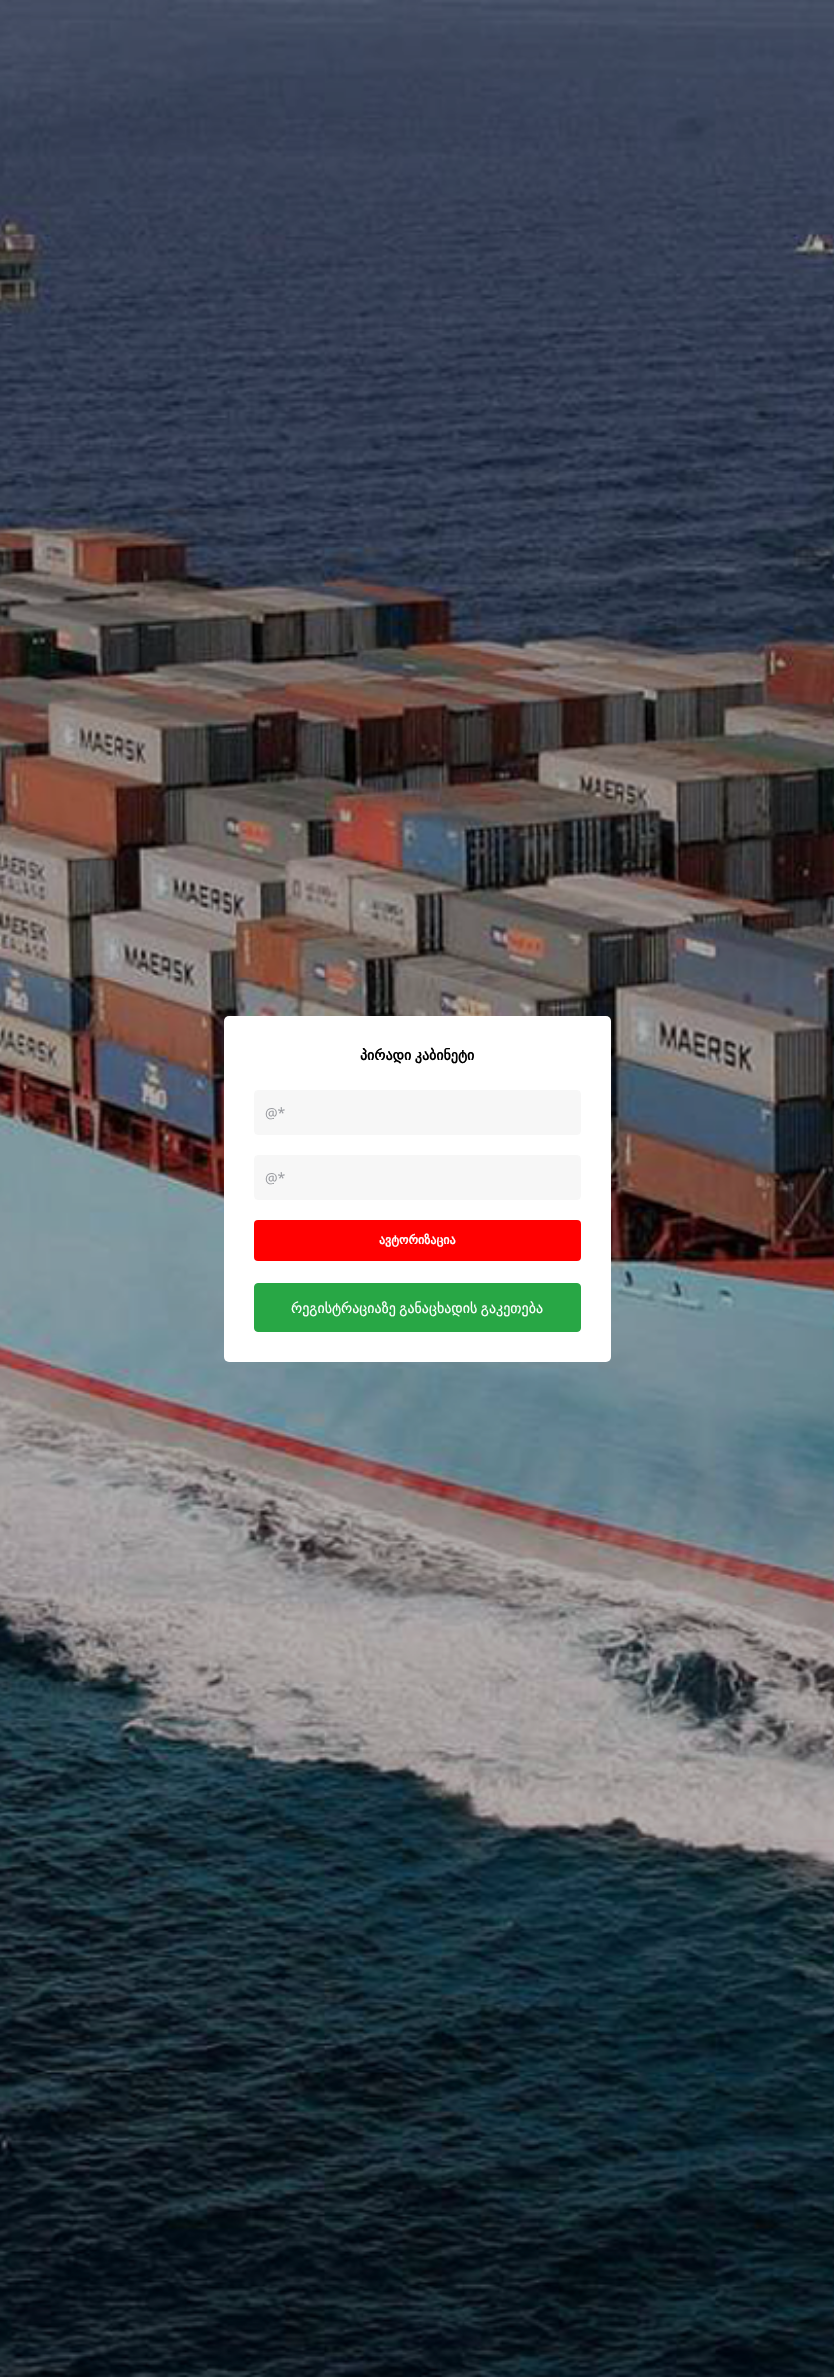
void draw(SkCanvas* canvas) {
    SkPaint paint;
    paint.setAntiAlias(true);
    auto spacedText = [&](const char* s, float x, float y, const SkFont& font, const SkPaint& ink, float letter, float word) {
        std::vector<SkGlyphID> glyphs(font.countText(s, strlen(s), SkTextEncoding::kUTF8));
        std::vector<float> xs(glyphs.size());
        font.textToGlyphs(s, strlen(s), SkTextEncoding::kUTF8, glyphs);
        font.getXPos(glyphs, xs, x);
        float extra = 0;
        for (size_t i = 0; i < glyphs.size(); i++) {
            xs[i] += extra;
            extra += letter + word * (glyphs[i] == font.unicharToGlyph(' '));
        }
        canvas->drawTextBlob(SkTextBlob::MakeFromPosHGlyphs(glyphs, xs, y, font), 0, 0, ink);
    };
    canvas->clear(0xFFFFFFFF);
    canvas->drawImageRect(SkImages::DeferredFromEncodedData(SkData::MakeFromFileName("img1.png")), SkRect::MakeXYWH(0, 0, 834, 2377), SkSamplingOptions());
    paint.setColor(0xFFFFFFFF);
    canvas->drawRoundRect(SkRect::MakeXYWH(224, 1016, 387, 346), 5, 5, paint);
    SkFont font1(fontMgr->matchFamilyStyle("DejaVu Sans", SkFontStyle::Bold()), 14);
    font1.setSubpixel(true);
    paint.setColor(0xFF000000);
    spacedText("პირადი კაბინეტი", 360, 1060, font1, paint, 0, -1);
    paint.setColor(0xFFF7F7F7);
    canvas->drawRoundRect(SkRect::MakeXYWH(255, 1091, 325, 43), 2.5f, 2.5f, paint);
    paint.setStyle(SkPaint::kStroke_Style);
    paint.setStrokeWidth(1);
    canvas->drawRoundRect(SkRect::MakeXYWH(254.5f, 1090.5f, 326, 44), 3.5f, 3.5f, paint);
    SkFont font2(fontMgr->matchFamilyStyle("Open Sans", SkFontStyle::Normal()), 14);
    font2.setSubpixel(true);
    paint.setStyle(SkPaint::kFill_Style);
    paint.setColor(0xFF999BA0);
    canvas->drawString("@*", 265, 1118, font2, paint);
    paint.setColor(0xFFF7F7F7);
    canvas->drawRoundRect(SkRect::MakeXYWH(255, 1156, 325, 43), 2.5f, 2.5f, paint);
    paint.setStyle(SkPaint::kStroke_Style);
    canvas->drawRoundRect(SkRect::MakeXYWH(254.5f, 1155.5f, 326, 44), 3.5f, 3.5f, paint);
    paint.setStyle(SkPaint::kFill_Style);
    paint.setColor(0xFF999BA0);
    canvas->drawString("@*", 265, 1183, font2, paint);
    paint.setColor(0xFFFF0000);
    canvas->drawRoundRect(SkRect::MakeXYWH(254, 1220, 327, 41), 4, 4, paint);
    SkFont font3(fontMgr->matchFamilyStyle("DejaVu Sans", SkFontStyle::Bold()), 12);
    font3.setSubpixel(true);
    paint.setColor(0xFFFFFFFF);
    canvas->drawString("ავტორიზაცია", 379, 1244, font3, paint);
    paint.setColor(0xFF28A745);
    canvas->drawRoundRect(SkRect::MakeXYWH(254.5f, 1283.5f, 326, 48), 3.5f, 3.5f, paint);
    paint.setStyle(SkPaint::kStroke_Style);
    canvas->drawRoundRect(SkRect::MakeXYWH(254.5f, 1283.5f, 326, 48), 3.5f, 3.5f, paint);
    SkFont font4(fontMgr->matchFamilyStyle("DejaVu Sans", SkFontStyle::Normal()), 14);
    font4.setSubpixel(true);
    paint.setStyle(SkPaint::kFill_Style);
    paint.setColor(0xFFFFFFFF);
    spacedText("რეგისტრაციაზე განაცხადის გაკეთება", 291, 1313, font4, paint, 0, -1);
}
